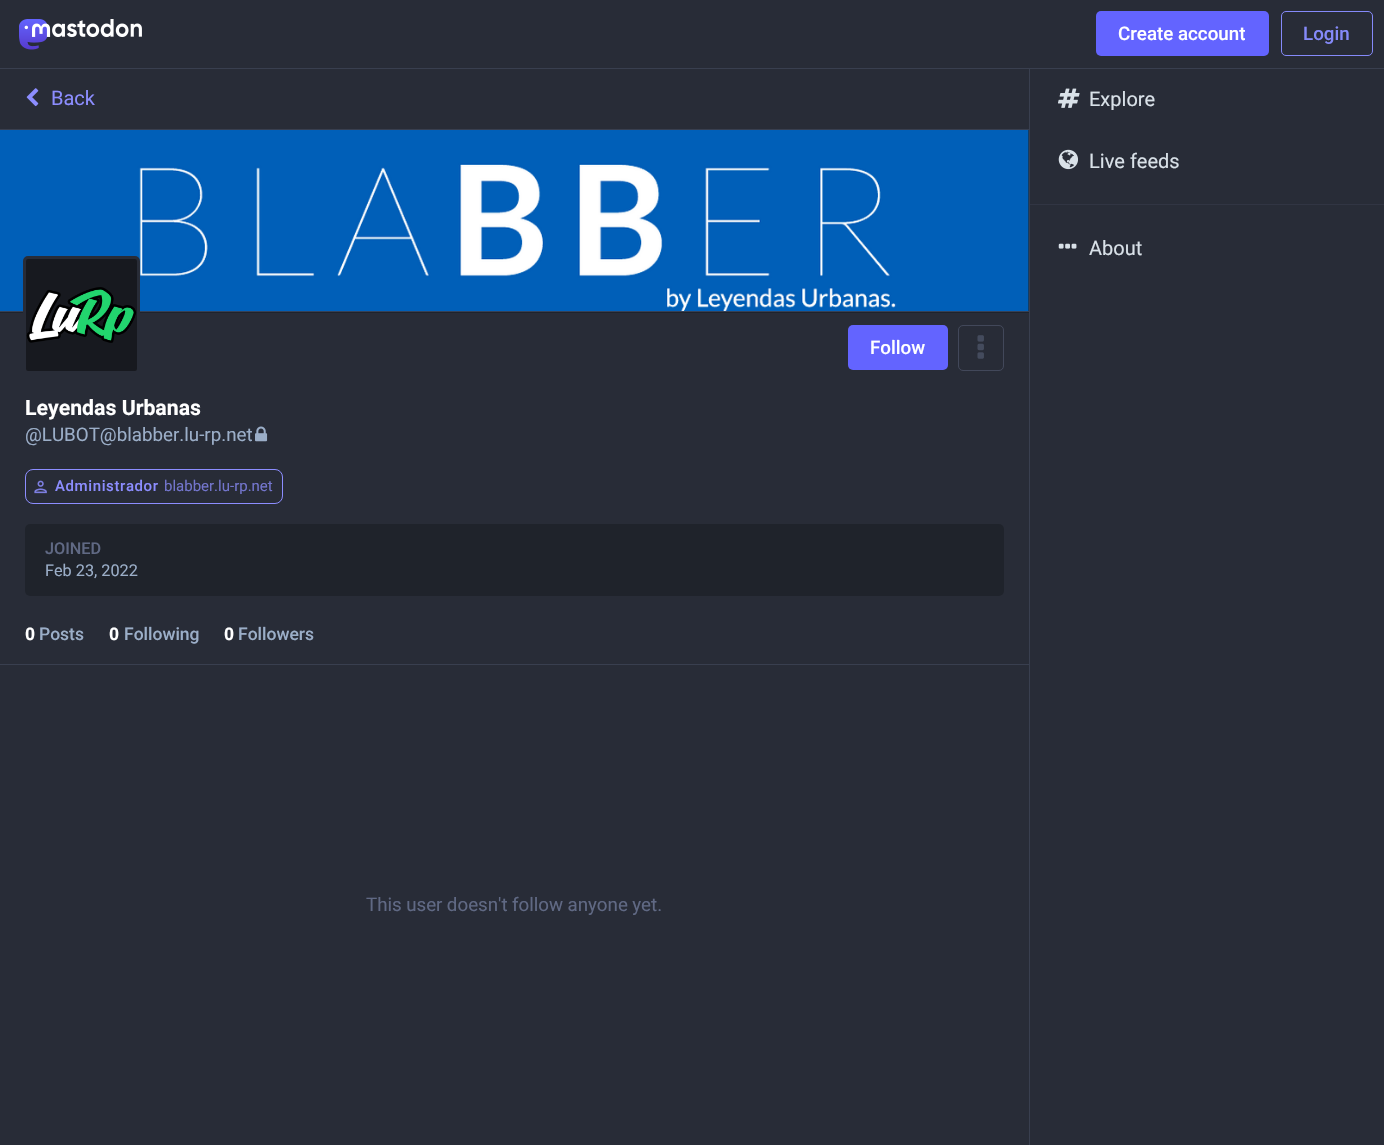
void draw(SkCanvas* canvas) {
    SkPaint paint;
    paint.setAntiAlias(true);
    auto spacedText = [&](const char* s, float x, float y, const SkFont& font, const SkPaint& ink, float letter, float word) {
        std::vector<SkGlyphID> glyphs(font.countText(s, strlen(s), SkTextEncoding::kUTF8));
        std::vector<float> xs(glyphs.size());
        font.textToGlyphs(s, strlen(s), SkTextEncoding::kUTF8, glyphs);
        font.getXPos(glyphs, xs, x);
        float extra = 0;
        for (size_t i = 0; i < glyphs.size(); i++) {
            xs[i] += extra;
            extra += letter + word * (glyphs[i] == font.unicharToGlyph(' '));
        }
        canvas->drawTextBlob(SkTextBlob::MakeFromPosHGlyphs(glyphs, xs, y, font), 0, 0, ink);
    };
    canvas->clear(0xFF282C37);
    paint.setColor(0xFF393F4F);
    canvas->drawRect(SkRect::MakeXYWH(0, 68, 1384, 1), paint);
    canvas->drawImageRect(SkImages::DeferredFromEncodedData(SkData::MakeFromFileName("img1.png")), SkRect::MakeXYWH(19, 19, 123, 31), SkSamplingOptions());
    paint.setColor(0xFF6364FF);
    canvas->drawRoundRect(SkRect::MakeXYWH(1096, 11, 173, 45), 5, 5, paint);
    SkFont font1(fontMgr->matchFamilyStyle("Roboto", SkFontStyle(500, SkFontStyle::kNormal_Width, SkFontStyle::kUpright_Slant)), 18.75f);
    font1.setSubpixel(true);
    paint.setColor(0xFFFFFFFF);
    canvas->drawString("Create account", 1118, 40, font1, paint);
    paint.setStyle(SkPaint::kStroke_Style);
    paint.setStrokeWidth(1);
    paint.setColor(0xFF858AFA);
    canvas->drawRoundRect(SkRect::MakeXYWH(1281.5f, 11.5f, 91, 44), 4.5f, 4.5f, paint);
    paint.setStyle(SkPaint::kFill_Style);
    canvas->drawString("Login", 1303, 40, font1, paint);
    paint.setColor(0xFF393F4F);
    canvas->drawRect(SkRect::MakeXYWH(0, 129, 1029, 1), paint);
    canvas->drawImageRect(SkImages::DeferredFromEncodedData(SkData::MakeFromFileName("img2.png")), SkRect::MakeXYWH(26, 88, 13, 19), SkSamplingOptions());
    SkFont font2(fontMgr->matchFamilyStyle("Roboto", SkFontStyle::Normal()), 20);
    font2.setSubpixel(true);
    paint.setColor(0xFF8C8DFF);
    canvas->drawString("Back", 51, 105, font2, paint);
    paint.setColor(0xFF1F232B);
    canvas->drawRect(SkRect::MakeXYWH(0, 130, 1029, 183), paint);
    paint.setColor(0xFF393F4F);
    canvas->drawRect(SkRect::MakeXYWH(0, 311, 1029, 1), paint);
    canvas->drawImageRect(SkImages::DeferredFromEncodedData(SkData::MakeFromFileName("img3.png")), SkRect::MakeXYWH(0, 130, 1029, 182), SkSamplingOptions());
    canvas->drawRect(SkRect::MakeXYWH(0, 664, 1029, 1), paint);
    paint.setColor(0xFF17191F);
    canvas->drawRoundRect(SkRect::MakeXYWH(24.5f, 257.5f, 114, 115), 3.5f, 3.5f, paint);
    paint.setStyle(SkPaint::kStroke_Style);
    paint.setStrokeWidth(3);
    paint.setColor(0xFF282C37);
    canvas->drawRoundRect(SkRect::MakeXYWH(24.5f, 257.5f, 114, 115), 3.5f, 3.5f, paint);
    canvas->drawImageRect(SkImages::DeferredFromEncodedData(SkData::MakeFromFileName("img4.png")), SkRect::MakeXYWH(26, 287, 111, 56), SkSamplingOptions());
    paint.setStyle(SkPaint::kFill_Style);
    paint.setColor(0xFF6364FF);
    canvas->drawRoundRect(SkRect::MakeXYWH(848, 325, 100, 45), 5, 5, paint);
    paint.setColor(0xFFFFFFFF);
    canvas->drawString("Follow", 870, 354, font1, paint);
    paint.setStyle(SkPaint::kStroke_Style);
    paint.setStrokeWidth(1);
    paint.setColor(0xFF42485A);
    canvas->drawRoundRect(SkRect::MakeXYWH(958.5f, 325.5f, 45, 45), 4.5f, 4.5f, paint);
    canvas->drawImageRect(SkImages::DeferredFromEncodedData(SkData::MakeFromFileName("img5.png")), SkRect::MakeXYWH(977, 335, 7, 24), SkSamplingOptions());
    SkFont font3(fontMgr->matchFamilyStyle("Roboto", SkFontStyle::Bold()), 21.25f);
    font3.setSubpixel(true);
    paint.setStyle(SkPaint::kFill_Style);
    paint.setColor(0xFFFFFFFF);
    canvas->drawString("Leyendas Urbanas", 25, 415, font3, paint);
    SkFont font4(fontMgr->matchFamilyStyle("Roboto", SkFontStyle::Normal()), 18.75f);
    font4.setSubpixel(true);
    paint.setColor(0xFF9BAEC8);
    canvas->drawString("@LUBOT@blabber.lu-rp.net", 25, 441, font4, paint);
    canvas->drawImageRect(SkImages::DeferredFromEncodedData(SkData::MakeFromFileName("img6.png")), SkRect::MakeXYWH(255, 426, 13, 16), SkSamplingOptions());
    paint.setStyle(SkPaint::kStroke_Style);
    paint.setColor(0xFF8C8DFF);
    canvas->drawRoundRect(SkRect::MakeXYWH(25.5f, 469.5f, 257, 34), 7.5f, 7.5f, paint);
    canvas->drawImageRect(SkImages::DeferredFromEncodedData(SkData::MakeFromFileName("img7.png")), SkRect::MakeXYWH(34, 480, 13, 14), SkSamplingOptions());
    SkFont font5(fontMgr->matchFamilyStyle("Roboto", SkFontStyle(500, SkFontStyle::kNormal_Width, SkFontStyle::kUpright_Slant)), 15);
    font5.setSubpixel(true);
    paint.setStyle(SkPaint::kFill_Style);
    spacedText("Administrador", 55, 491, font5, paint, 0.6f, 0);
    SkFont font6(fontMgr->matchFamilyStyle("Roboto", SkFontStyle::Normal()), 15);
    font6.setSubpixel(true);
    paint.setColor(0xFF7375CD);
    canvas->drawString("blabber.lu-rp.net", 164, 491, font6, paint);
    paint.setColor(0xFF1F232B);
    canvas->drawRoundRect(SkRect::MakeXYWH(25, 524, 979, 72), 5, 5, paint);
    SkFont font7(fontMgr->matchFamilyStyle("Roboto", SkFontStyle(500, SkFontStyle::kNormal_Width, SkFontStyle::kUpright_Slant)), 16.25f);
    font7.setSubpixel(true);
    paint.setColor(0xFF606984);
    canvas->drawString("JOINED", 45, 554, font7, paint);
    SkFont font8(fontMgr->matchFamilyStyle("Roboto", SkFontStyle::Normal()), 16.25f);
    font8.setSubpixel(true);
    paint.setColor(0xFF9BAEC8);
    canvas->drawString("Feb 23, 2022", 45, 576, font8, paint);
    SkFont font9(fontMgr->matchFamilyStyle("Roboto", SkFontStyle::Bold()), 17.5f);
    font9.setSubpixel(true);
    paint.setColor(0xFFFFFFFF);
    canvas->drawString("0", 25, 640, font9, paint);
    SkFont font10(fontMgr->matchFamilyStyle("Roboto", SkFontStyle(500, SkFontStyle::kNormal_Width, SkFontStyle::kUpright_Slant)), 17.5f);
    font10.setSubpixel(true);
    paint.setColor(0xFF9BAEC8);
    canvas->drawString("Posts", 39, 640, font10, paint);
    paint.setColor(0xFFFFFFFF);
    canvas->drawString("0", 109, 640, font9, paint);
    paint.setColor(0xFF9BAEC8);
    canvas->drawString("Following", 124, 640, font10, paint);
    paint.setColor(0xFFFFFFFF);
    canvas->drawString("0", 224, 640, font9, paint);
    paint.setColor(0xFF9BAEC8);
    canvas->drawString("Followers", 238, 640, font10, paint);
    paint.setColor(0xFF606984);
    spacedText("This user doesn't follow anyone yet.", 366, 911, font4, paint, 0, -0.25f);
    paint.setColor(0xFF393F4F);
    canvas->drawRect(SkRect::MakeXYWH(1029, 69, 1, 1076), paint);
    canvas->drawImageRect(SkImages::DeferredFromEncodedData(SkData::MakeFromFileName("img8.png")), SkRect::MakeXYWH(1058, 88, 22, 20), SkSamplingOptions());
    paint.setColor(0xFFD9E1E8);
    canvas->drawString("Explore", 1089, 106, font2, paint);
    canvas->drawImageRect(SkImages::DeferredFromEncodedData(SkData::MakeFromFileName("img9.png")), SkRect::MakeXYWH(1058, 149, 20, 21), SkSamplingOptions());
    canvas->drawString("Live feeds", 1089, 168, font2, paint);
    paint.setColor(0xFF313543);
    canvas->drawRect(SkRect::MakeXYWH(1030, 204, 354, 1), paint);
    canvas->drawImageRect(SkImages::DeferredFromEncodedData(SkData::MakeFromFileName("img10.png")), SkRect::MakeXYWH(1058, 243, 19, 6), SkSamplingOptions());
    paint.setColor(0xFFD9E1E8);
    canvas->drawString("About", 1089, 255, font2, paint);
}
